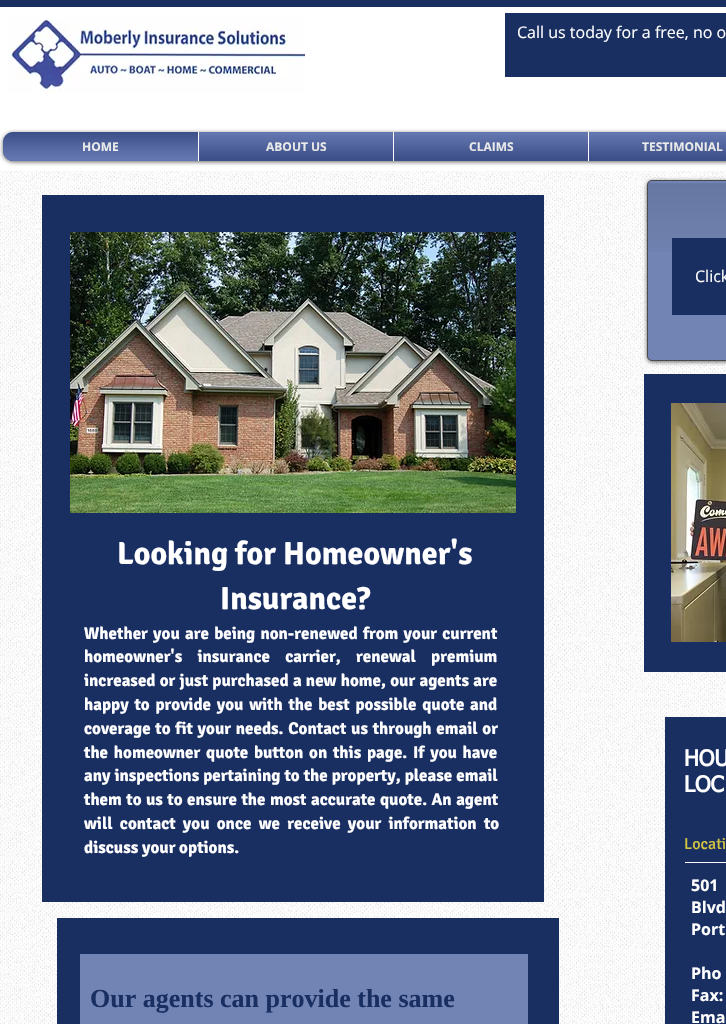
void draw(SkCanvas* canvas) {
    SkPaint paint;
    paint.setAntiAlias(true);
    auto spacedText = [&](const char* s, float x, float y, const SkFont& font, const SkPaint& ink, float letter, float word) {
        std::vector<SkGlyphID> glyphs(font.countText(s, strlen(s), SkTextEncoding::kUTF8));
        std::vector<float> xs(glyphs.size());
        font.textToGlyphs(s, strlen(s), SkTextEncoding::kUTF8, glyphs);
        font.getXPos(glyphs, xs, x);
        float extra = 0;
        for (size_t i = 0; i < glyphs.size(); i++) {
            xs[i] += extra;
            extra += letter + word * (glyphs[i] == font.unicharToGlyph(' '));
        }
        canvas->drawTextBlob(SkTextBlob::MakeFromPosHGlyphs(glyphs, xs, y, font), 0, 0, ink);
    };
    canvas->clear(0xFFFFFFFF);
    paint.setColor(0xFF192E61);
    canvas->drawRect(SkRect::MakeXYWH(0, 0, 726, 7), paint);
    canvas->drawImageRect(SkImages::DeferredFromEncodedData(SkData::MakeFromFileName("img1.png")), SkRect::MakeXYWH(8, 18, 297, 75), SkSamplingOptions());
    canvas->drawRect(SkRect::MakeXYWH(505, 13, 221, 64), paint);
    SkFont font1(fontMgr->matchFamilyStyle("Open Sans", SkFontStyle::Normal()), 16);
    font1.setSubpixel(true);
    paint.setColor(0xFFFFFFFF);
    canvas->drawString("Call us today for a free, no o", 517, 38, font1, paint);
    paint.setColor(0x99000000);
    paint.setMaskFilter(SkMaskFilter::MakeBlur(kNormal_SkBlurStyle, 2));
    canvas->drawRoundRect(SkRect::MakeXYWH(3, 133, 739, 29), 10, 10, paint);
    paint.setMaskFilter(nullptr);
    canvas->drawImageRect(SkImages::DeferredFromEncodedData(SkData::MakeFromFileName("img2.png")), SkRect::MakeXYWH(3, 132, 10, 29), SkSamplingOptions());
    canvas->drawImageRect(SkImages::DeferredFromEncodedData(SkData::MakeFromFileName("img3.png")), SkRect::MakeXYWH(3, 140, 10, 21), SkSamplingOptions());
    paint.setColor(0xFF3E569E);
    canvas->drawPath(SkPathBuilder().moveTo(13, 132).lineTo(198, 132).lineTo(198, 161).lineTo(13, 161).cubicTo(7.5f, 161, 3, 156.5f, 3, 151).lineTo(3, 142).cubicTo(3, 136.5f, 7.5f, 132, 13, 132).close().detach(), paint);
    SkFont font2(fontMgr->matchFamilyStyle("Open Sans", SkFontStyle::Bold()), 12);
    font2.setSubpixel(true);
    paint.setColor(0xFFFFFFFF);
    canvas->drawString("HOME", 82, 151, font2, paint);
    canvas->drawImageRect(SkImages::DeferredFromEncodedData(SkData::MakeFromFileName("img4.png")), SkRect::MakeXYWH(3, 132, 195, 25), SkSamplingOptions());
    canvas->drawImageRect(SkImages::DeferredFromEncodedData(SkData::MakeFromFileName("img5.png")), SkRect::MakeXYWH(3, 132, 195, 29), SkSamplingOptions());
    paint.setColor(0xFF3E569E);
    canvas->drawRect(SkRect::MakeXYWH(199, 132, 194, 29), paint);
    paint.setColor(0xFFFFFFFF);
    canvas->drawRect(SkRect::MakeXYWH(198, 132, 1, 29), paint);
    canvas->drawString("ABOUT US", 266, 151, font2, paint);
    canvas->drawImageRect(SkImages::DeferredFromEncodedData(SkData::MakeFromFileName("img6.png")), SkRect::MakeXYWH(199, 132, 194, 29), SkSamplingOptions());
    canvas->drawImageRect(SkImages::DeferredFromEncodedData(SkData::MakeFromFileName("img7.png")), SkRect::MakeXYWH(199, 135, 194, 26), SkSamplingOptions());
    paint.setColor(0xFF3E569E);
    canvas->drawRect(SkRect::MakeXYWH(394, 132, 194, 29), paint);
    paint.setColor(0xFFFFFFFF);
    canvas->drawRect(SkRect::MakeXYWH(393, 132, 1, 29), paint);
    canvas->drawString("CLAIMS", 469, 151, font2, paint);
    canvas->drawImageRect(SkImages::DeferredFromEncodedData(SkData::MakeFromFileName("img8.png")), SkRect::MakeXYWH(394, 132, 194, 29), SkSamplingOptions());
    canvas->drawImageRect(SkImages::DeferredFromEncodedData(SkData::MakeFromFileName("img9.png")), SkRect::MakeXYWH(394, 135, 194, 26), SkSamplingOptions());
    paint.setColor(0xFF3E569E);
    canvas->drawRect(SkRect::MakeXYWH(589, 132, 137, 29), paint);
    paint.setColor(0xFFFFFFFF);
    canvas->drawRect(SkRect::MakeXYWH(588, 132, 1, 29), paint);
    canvas->drawString("TESTIMONIAL", 642, 151, font2, paint);
    canvas->drawImageRect(SkImages::DeferredFromEncodedData(SkData::MakeFromFileName("img10.png")), SkRect::MakeXYWH(589, 132, 137, 29), SkSamplingOptions());
    canvas->drawImageRect(SkImages::DeferredFromEncodedData(SkData::MakeFromFileName("img11.png")), SkRect::MakeXYWH(589, 135, 137, 26), SkSamplingOptions());
    canvas->drawImageRect(SkImages::DeferredFromEncodedData(SkData::MakeFromFileName("img15.png")), SkRect::MakeXYWH(0, 171, 726, 853), SkSamplingOptions());
    paint.setColor(0x99000000);
    paint.setMaskFilter(SkMaskFilter::MakeBlur(kNormal_SkBlurStyle, 2));
    canvas->drawRoundRect(SkRect::MakeXYWH(647, 181, 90, 181), 5, 5, paint);
    paint.setMaskFilter(nullptr);
    paint.setColor(0xFF7284B3);
    canvas->drawRoundRect(SkRect::MakeXYWH(647, 180, 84, 181), 5, 5, paint);
    canvas->drawImageRect(SkImages::DeferredFromEncodedData(SkData::MakeFromFileName("img12.png")), SkRect::MakeXYWH(647, 183, 79, 69), SkSamplingOptions());
    paint.setStyle(SkPaint::kStroke_Style);
    paint.setStrokeWidth(1);
    paint.setColor(0xFF4A4A4A);
    canvas->drawRoundRect(SkRect::MakeXYWH(647.5f, 180.5f, 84, 180), 4.5f, 4.5f, paint);
    paint.setStyle(SkPaint::kFill_Style);
    paint.setColor(0xFF192E61);
    canvas->drawRect(SkRect::MakeXYWH(672, 238, 54, 77), paint);
    paint.setColor(0xFFFFFFFF);
    canvas->drawString("Click", 695, 282, font1, paint);
    paint.setColor(0xFF192E61);
    canvas->drawRect(SkRect::MakeXYWH(42, 195, 502, 707), paint);
    canvas->drawImageRect(SkImages::DeferredFromEncodedData(SkData::MakeFromFileName("img13.png")), SkRect::MakeXYWH(70, 232, 446, 281), SkSamplingOptions());
    SkFont font3(fontMgr->matchFamilyStyle("Signika", SkFontStyle::Bold()), 32);
    font3.setSubpixel(true);
    paint.setColor(0xFFFFFFFF);
    canvas->drawString("Looking for Homeowner's", 117, 564, font3, paint);
    canvas->drawString("Insurance?", 220, 609, font3, paint);
    SkFont font4(fontMgr->matchFamilyStyle("Signika", SkFontStyle::Bold()), 17);
    font4.setSubpixel(true);
    spacedText("Whether you are being non-renewed from your current", 84, 639, font4, paint, 0, 1.5f);
    spacedText("homeowner's insurance carrier, renewal premium", 84, 662, font4, paint, 0, 11.5f);
    spacedText("increased or just purchased a new home, our agents are", 84, 686, font4, paint, 0, 0.5f);
    spacedText("happy to provide you with the best possible quote and", 84, 710, font4, paint, 0, 2);
    spacedText("coverage to fit your needs. Contact us through email or", 84, 734, font4, paint, 0, 1);
    spacedText("the homeowner quote button on this page. If you have", 84, 758, font4, paint, 0, 2);
    spacedText("any inspections pertaining to the property, please email", 84, 781, font4, paint, 0, 0.25f);
    spacedText("them to us to ensure the most accurate quote. An agent", 84, 805, font4, paint, 0, 0.75f);
    spacedText("will contact you once we receive your information to", 84, 829, font4, paint, 0, 3.5f);
    canvas->drawString("discuss your options.", 84, 853, font4, paint);
    paint.setColor(0xFF192E61);
    canvas->drawRect(SkRect::MakeXYWH(644, 374, 82, 298), paint);
    canvas->drawImageRect(SkImages::DeferredFromEncodedData(SkData::MakeFromFileName("img14.png")), SkRect::MakeXYWH(671, 403, 55, 239), SkSamplingOptions());
    canvas->drawRect(SkRect::MakeXYWH(57, 918, 502, 106), paint);
    paint.setColor(0xFF7284B3);
    canvas->drawRect(SkRect::MakeXYWH(80, 954, 448, 70), paint);
    SkFont font5(fontMgr->matchFamilyStyle("Liberation Serif", SkFontStyle::Bold()), 26);
    font5.setSubpixel(true);
    paint.setColor(0xFF192E61);
    canvas->drawString("Our agents can provide the same", 90, 1007, font5, paint);
    canvas->drawRect(SkRect::MakeXYWH(665, 717, 61, 307), paint);
    SkFont font6(fontMgr->matchFamilyStyle("tahoma", SkFontStyle::Bold()), 22);
    font6.setSubpixel(true);
    paint.setColor(0xFFFFFFFF);
    canvas->drawString("HOU", 684, 766, font6, paint);
    canvas->drawString("LOC", 684, 792, font6, paint);
    SkFont font7(fontMgr->matchFamilyStyle("Signika", SkFontStyle::Normal()), 16);
    font7.setSubpixel(true);
    paint.setColor(0xFFD3C543);
    canvas->drawString("Locati", 684, 849, font7, paint);
    paint.setColor(0xFFFFFFFF);
    canvas->drawRect(SkRect::MakeXYWH(685, 862, 41, 1), paint);
    SkFont font8(fontMgr->matchFamilyStyle("Open Sans", SkFontStyle::Bold()), 16);
    font8.setSubpixel(true);
    canvas->drawString("501", 691, 891, font8, paint);
    canvas->drawString("Blvd", 691, 913, font8, paint);
    canvas->drawString("Port", 691, 935, font8, paint);
    canvas->drawString("Pho", 691, 979, font8, paint);
    canvas->drawString("Fax:", 691, 1001, font8, paint);
    canvas->drawString("Ema", 691, 1023, font8, paint);
}
